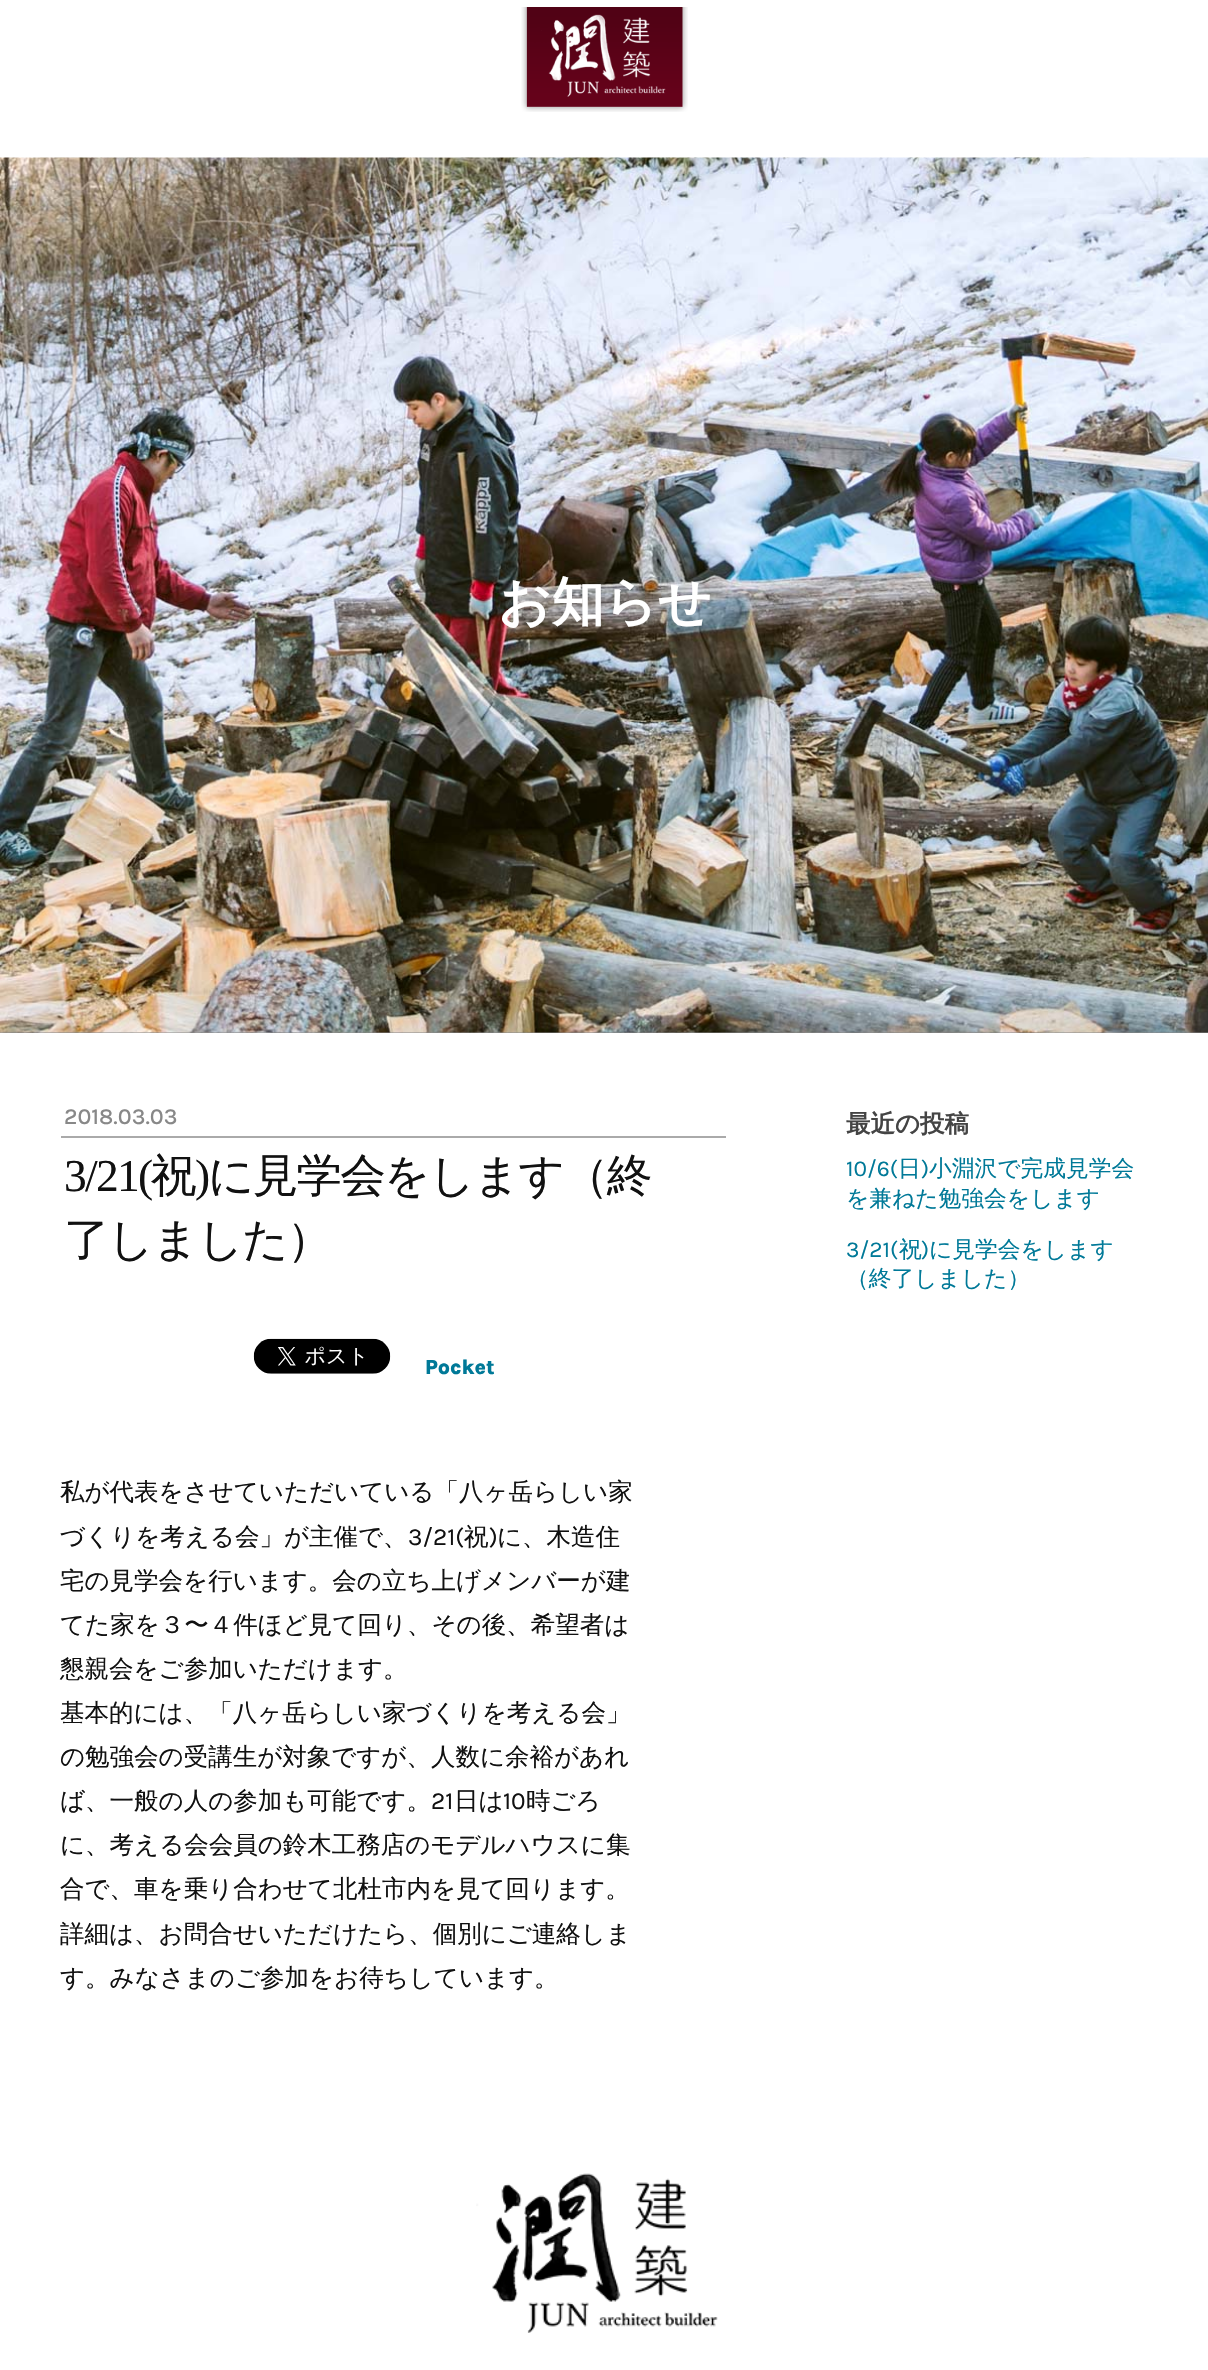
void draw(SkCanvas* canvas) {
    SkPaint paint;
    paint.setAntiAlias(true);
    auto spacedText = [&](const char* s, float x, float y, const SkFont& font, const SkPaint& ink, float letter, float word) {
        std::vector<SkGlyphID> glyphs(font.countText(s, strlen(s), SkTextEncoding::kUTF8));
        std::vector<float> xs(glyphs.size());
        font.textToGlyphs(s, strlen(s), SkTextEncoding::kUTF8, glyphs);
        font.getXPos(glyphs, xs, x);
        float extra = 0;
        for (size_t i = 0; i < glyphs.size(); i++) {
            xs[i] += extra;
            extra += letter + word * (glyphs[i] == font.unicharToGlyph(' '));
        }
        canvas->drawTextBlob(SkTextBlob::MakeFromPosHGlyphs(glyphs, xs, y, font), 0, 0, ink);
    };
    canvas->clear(0xFFFFFFFF);
    canvas->drawImageRect(SkImages::DeferredFromEncodedData(SkData::MakeFromFileName("img1.png")), SkRect::MakeXYWH(521, 7, 167, 105), SkSamplingOptions());
    paint.setColor(0xFF888888);
    canvas->drawRect(SkRect::MakeXYWH(0, 1032, 1208, 1), paint);
    canvas->drawImageRect(SkImages::DeferredFromEncodedData(SkData::MakeFromFileName("img2.png")), SkRect::MakeXYWH(0, 157, 1208, 876), SkSamplingOptions());
    SkFont font1(fontMgr->matchFamilyStyle("WenQuanYi Zen Hei", SkFontStyle::Bold()), 52.5f);
    font1.setSubpixel(true);
    paint.setColor(0xFFFFFFFF);
    canvas->drawString("お知らせ", 498, 620, font1, paint);
    paint.setColor(0xFFAAAAAA);
    canvas->drawRect(SkRect::MakeXYWH(61, 1136, 665, 2), paint);
    SkFont font2(fontMgr->matchFamilyStyle("Karla", SkFontStyle(500, SkFontStyle::kNormal_Width, SkFontStyle::kUpright_Slant)), 22.75f);
    font2.setSubpixel(true);
    paint.setColor(0xFF888888);
    canvas->drawString("2018.03.03", 64, 1124, font2, paint);
    SkFont font3(fontMgr->matchFamilyStyle("Liberation Serif", SkFontStyle::Normal()), 45.5f);
    font3.setSubpixel(true);
    paint.setColor(0xFF111111);
    spacedText("3/21(", 64, 1191, font3, paint, -1.75f, 0);
    SkFont font4(fontMgr->matchFamilyStyle("WenQuanYi Zen Hei", SkFontStyle(500, SkFontStyle::kNormal_Width, SkFontStyle::kUpright_Slant)), 45.5f);
    font4.setSubpixel(true);
    spacedText("祝", 151, 1191, font4, paint, -1.75f, 0);
    spacedText(")", 195, 1191, font3, paint, -1.75f, 0);
    spacedText("に見学会をします（終", 208, 1191, font4, paint, -1.75f, 0);
    spacedText("了しました）", 64, 1255, font4, paint, -1.75f, 0);
    canvas->drawImageRect(SkImages::DeferredFromEncodedData(SkData::MakeFromFileName("img3.png")), SkRect::MakeXYWH(253, 1338, 138, 36), SkSamplingOptions());
    SkFont font5(fontMgr->matchFamilyStyle("Karla", SkFontStyle(800, SkFontStyle::kNormal_Width, SkFontStyle::kUpright_Slant)), 21);
    font5.setSubpixel(true);
    paint.setColor(0xFF007998);
    canvas->drawString("Pocket", 425, 1374, font5, paint);
    SkFont font6(fontMgr->matchFamilyStyle("WenQuanYi Zen Hei", SkFontStyle(500, SkFontStyle::kNormal_Width, SkFontStyle::kUpright_Slant)), 24.5f);
    font6.setSubpixel(true);
    paint.setColor(0xFF111111);
    canvas->drawString("私が代表をさせていただいている「八ヶ岳らしい家", 60, 1500, font6, paint);
    canvas->drawString("づくりを考える会」が主催で、", 60, 1545, font6, paint);
    SkFont font7(fontMgr->matchFamilyStyle("Karla", SkFontStyle::Normal()), 24.5f);
    font7.setSubpixel(true);
    canvas->drawString("3/21(", 408, 1545, font7, paint);
    canvas->drawString("祝", 464, 1545, font6, paint);
    canvas->drawString(")", 489, 1545, font7, paint);
    canvas->drawString("に、木造住", 497, 1545, font6, paint);
    canvas->drawString("宅の見学会を行います。会の立ち上げメンバーが建", 60, 1589, font6, paint);
    canvas->drawString("てた家を３〜４件ほど見て回り、その後、希望者は", 60, 1633, font6, paint);
    canvas->drawString("懇親会をご参加いただけます。", 60, 1677, font6, paint);
    canvas->drawString("基本的には、「八ヶ岳らしい家づくりを考える会」", 60, 1721, font6, paint);
    canvas->drawString("の勉強会の受講生が対象ですが、人数に余裕があれ", 60, 1765, font6, paint);
    canvas->drawString("ば、一般の人の参加も可能です。", 60, 1809, font6, paint);
    canvas->drawString("21", 431, 1809, font7, paint);
    canvas->drawString("日は", 454, 1809, font6, paint);
    canvas->drawString("10", 503, 1809, font7, paint);
    canvas->drawString("時ごろ", 526, 1809, font6, paint);
    canvas->drawString("に、考える会会員の鈴木工務店のモデルハウスに集", 60, 1853, font6, paint);
    canvas->drawString("合で、車を乗り合わせて北杜市内を見て回ります。", 60, 1897, font6, paint);
    canvas->drawString("詳細は、お問合せいただけたら、個別にご連絡しま", 60, 1942, font6, paint);
    canvas->drawString("す。みなさまのご参加をお待ちしています。", 60, 1986, font6, paint);
    SkFont font8(fontMgr->matchFamilyStyle("WenQuanYi Zen Hei", SkFontStyle::Bold()), 24.5f);
    font8.setSubpixel(true);
    paint.setColor(0xFF444444);
    canvas->drawString("最近の投稿", 846, 1132, font8, paint);
    SkFont font9(fontMgr->matchFamilyStyle("Karla", SkFontStyle::Normal()), 22.75f);
    font9.setSubpixel(true);
    paint.setColor(0xFF007998);
    canvas->drawString("10/6(", 846, 1176, font9, paint);
    SkFont font10(fontMgr->matchFamilyStyle("WenQuanYi Zen Hei", SkFontStyle(500, SkFontStyle::kNormal_Width, SkFontStyle::kUpright_Slant)), 22.75f);
    font10.setSubpixel(true);
    canvas->drawString("日", 898, 1176, font10, paint);
    canvas->drawString(")", 921, 1176, font9, paint);
    canvas->drawString("小淵沢で完成見学会", 929, 1176, font10, paint);
    canvas->drawString("を兼ねた勉強会をします", 846, 1206, font10, paint);
    canvas->drawString("3/21(", 846, 1257, font9, paint);
    canvas->drawString("祝", 899, 1257, font10, paint);
    canvas->drawString(")", 921, 1257, font9, paint);
    canvas->drawString("に見学会をします", 929, 1257, font10, paint);
    canvas->drawString("（終了しました）", 846, 1286, font10, paint);
    canvas->drawImageRect(SkImages::DeferredFromEncodedData(SkData::MakeFromFileName("img4.png")), SkRect::MakeXYWH(476, 2173, 242, 160), SkSamplingOptions());
}
